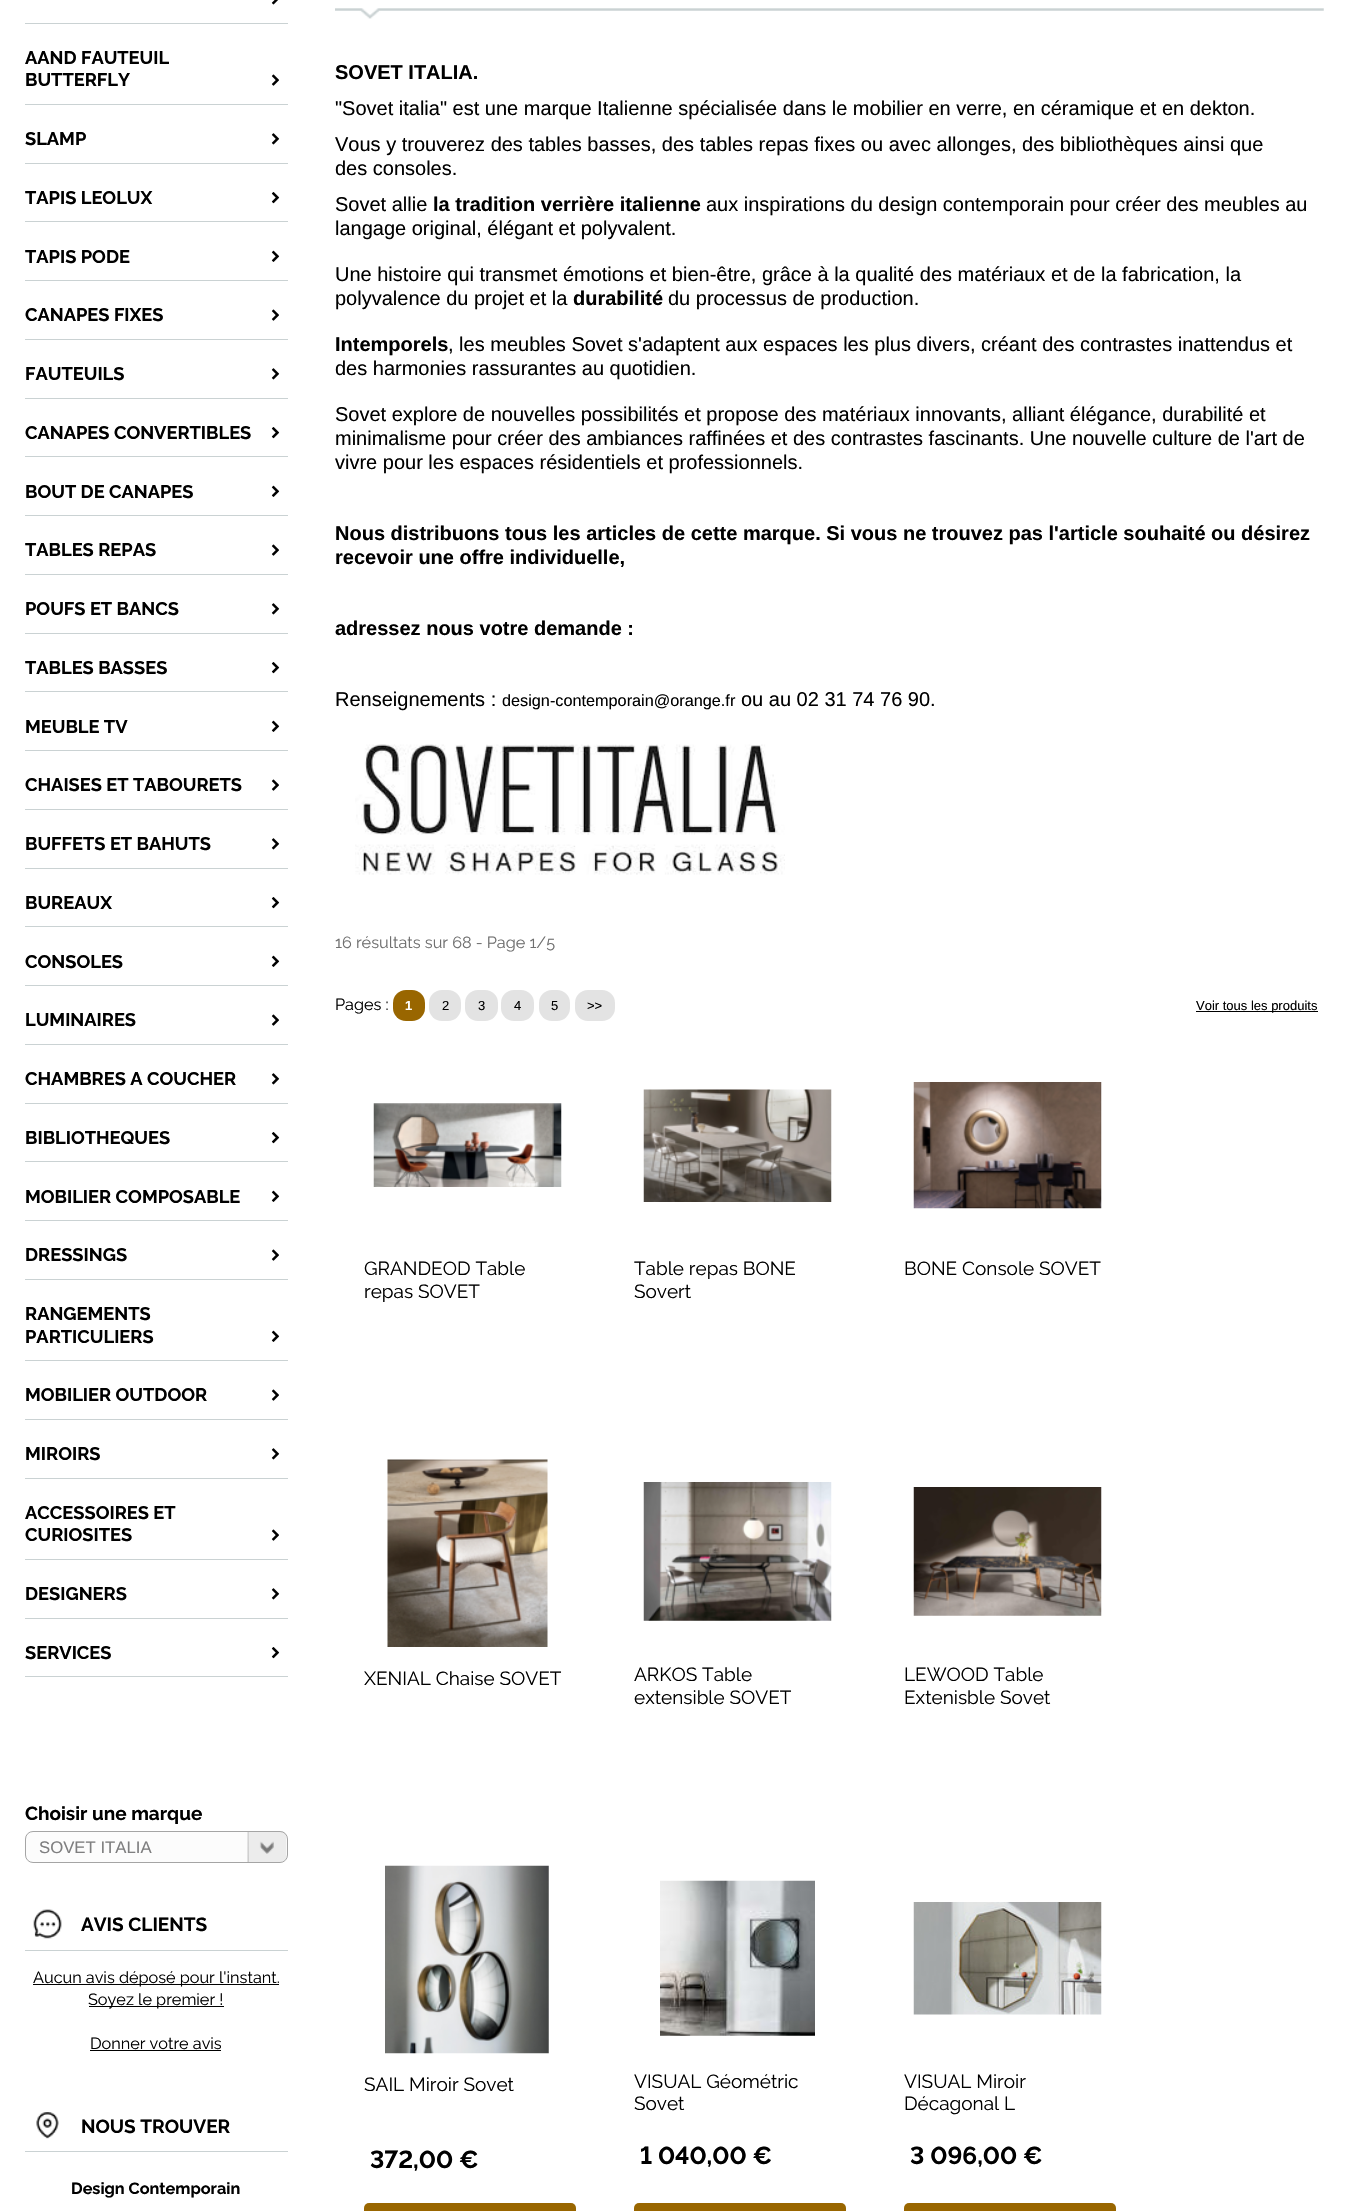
void draw(SkCanvas* canvas) {
    SkPaint paint;
    paint.setAntiAlias(true);
    canvas->clear(0xFFFFFFFF);
    paint.setColor(0xFFCAD2D3);
    canvas->drawRect(SkRect::MakeXYWH(25, 23, 263, 1), paint);
    canvas->drawImageRect(SkImages::DeferredFromEncodedData(SkData::MakeFromFileName("img1.png")), SkRect::MakeXYWH(271, 0, 7, 5), SkSamplingOptions());
    canvas->drawRect(SkRect::MakeXYWH(25, 104, 263, 1), paint);
    SkFont font1(fontMgr->matchFamilyStyle("Raleway", SkFontStyle::Bold()), 18.25f);
    font1.setSubpixel(true);
    paint.setColor(0xFF000000);
    canvas->drawString("AAND FAUTEUIL", 25, 64, font1, paint);
    canvas->drawString("BUTTERFLY", 25, 86, font1, paint);
    canvas->drawImageRect(SkImages::DeferredFromEncodedData(SkData::MakeFromFileName("img2.png")), SkRect::MakeXYWH(271, 74, 8, 12), SkSamplingOptions());
    paint.setColor(0xFFCAD2D3);
    canvas->drawRect(SkRect::MakeXYWH(25, 163, 263, 1), paint);
    paint.setColor(0xFF000000);
    canvas->drawString("SLAMP", 25, 145, font1, paint);
    canvas->drawImageRect(SkImages::DeferredFromEncodedData(SkData::MakeFromFileName("img3.png")), SkRect::MakeXYWH(271, 133, 9, 12), SkSamplingOptions());
    paint.setColor(0xFFCAD2D3);
    canvas->drawRect(SkRect::MakeXYWH(25, 221, 263, 1), paint);
    paint.setColor(0xFF000000);
    canvas->drawString("TAPIS LEOLUX", 25, 204, font1, paint);
    canvas->drawImageRect(SkImages::DeferredFromEncodedData(SkData::MakeFromFileName("img4.png")), SkRect::MakeXYWH(271, 192, 9, 12), SkSamplingOptions());
    paint.setColor(0xFFCAD2D3);
    canvas->drawRect(SkRect::MakeXYWH(25, 280, 263, 1), paint);
    paint.setColor(0xFF000000);
    canvas->drawString("TAPIS PODE", 25, 263, font1, paint);
    canvas->drawImageRect(SkImages::DeferredFromEncodedData(SkData::MakeFromFileName("img5.png")), SkRect::MakeXYWH(271, 250, 9, 12), SkSamplingOptions());
    paint.setColor(0xFFCAD2D3);
    canvas->drawRect(SkRect::MakeXYWH(25, 339, 263, 1), paint);
    paint.setColor(0xFF000000);
    canvas->drawString("CANAPES FIXES", 25, 321, font1, paint);
    canvas->drawImageRect(SkImages::DeferredFromEncodedData(SkData::MakeFromFileName("img2.png")), SkRect::MakeXYWH(271, 309, 8, 12), SkSamplingOptions());
    paint.setColor(0xFFCAD2D3);
    canvas->drawRect(SkRect::MakeXYWH(25, 398, 263, 1), paint);
    paint.setColor(0xFF000000);
    canvas->drawString("FAUTEUILS", 25, 380, font1, paint);
    canvas->drawImageRect(SkImages::DeferredFromEncodedData(SkData::MakeFromFileName("img3.png")), SkRect::MakeXYWH(271, 368, 9, 12), SkSamplingOptions());
    paint.setColor(0xFFCAD2D3);
    canvas->drawRect(SkRect::MakeXYWH(25, 456, 263, 1), paint);
    paint.setColor(0xFF000000);
    canvas->drawString("CANAPES CONVERTIBLES", 25, 439, font1, paint);
    canvas->drawImageRect(SkImages::DeferredFromEncodedData(SkData::MakeFromFileName("img4.png")), SkRect::MakeXYWH(271, 427, 9, 12), SkSamplingOptions());
    paint.setColor(0xFFCAD2D3);
    canvas->drawRect(SkRect::MakeXYWH(25, 515, 263, 1), paint);
    paint.setColor(0xFF000000);
    canvas->drawString("BOUT DE CANAPES", 25, 498, font1, paint);
    canvas->drawImageRect(SkImages::DeferredFromEncodedData(SkData::MakeFromFileName("img5.png")), SkRect::MakeXYWH(271, 485, 9, 12), SkSamplingOptions());
    paint.setColor(0xFFCAD2D3);
    canvas->drawRect(SkRect::MakeXYWH(25, 574, 263, 1), paint);
    paint.setColor(0xFF000000);
    canvas->drawString("TABLES REPAS", 25, 556, font1, paint);
    canvas->drawImageRect(SkImages::DeferredFromEncodedData(SkData::MakeFromFileName("img2.png")), SkRect::MakeXYWH(271, 544, 8, 12), SkSamplingOptions());
    paint.setColor(0xFFCAD2D3);
    canvas->drawRect(SkRect::MakeXYWH(25, 633, 263, 1), paint);
    paint.setColor(0xFF000000);
    canvas->drawString("POUFS ET BANCS", 25, 615, font1, paint);
    canvas->drawImageRect(SkImages::DeferredFromEncodedData(SkData::MakeFromFileName("img3.png")), SkRect::MakeXYWH(271, 603, 9, 12), SkSamplingOptions());
    paint.setColor(0xFFCAD2D3);
    canvas->drawRect(SkRect::MakeXYWH(25, 691, 263, 1), paint);
    paint.setColor(0xFF000000);
    canvas->drawString("TABLES BASSES", 25, 674, font1, paint);
    canvas->drawImageRect(SkImages::DeferredFromEncodedData(SkData::MakeFromFileName("img4.png")), SkRect::MakeXYWH(271, 662, 9, 12), SkSamplingOptions());
    paint.setColor(0xFFCAD2D3);
    canvas->drawRect(SkRect::MakeXYWH(25, 750, 263, 1), paint);
    paint.setColor(0xFF000000);
    canvas->drawString("MEUBLE TV", 25, 733, font1, paint);
    canvas->drawImageRect(SkImages::DeferredFromEncodedData(SkData::MakeFromFileName("img5.png")), SkRect::MakeXYWH(271, 720, 9, 12), SkSamplingOptions());
    paint.setColor(0xFFCAD2D3);
    canvas->drawRect(SkRect::MakeXYWH(25, 809, 263, 1), paint);
    paint.setColor(0xFF000000);
    canvas->drawString("CHAISES ET TABOURETS", 25, 791, font1, paint);
    canvas->drawImageRect(SkImages::DeferredFromEncodedData(SkData::MakeFromFileName("img2.png")), SkRect::MakeXYWH(271, 779, 8, 12), SkSamplingOptions());
    paint.setColor(0xFFCAD2D3);
    canvas->drawRect(SkRect::MakeXYWH(25, 868, 263, 1), paint);
    paint.setColor(0xFF000000);
    canvas->drawString("BUFFETS ET BAHUTS", 25, 850, font1, paint);
    canvas->drawImageRect(SkImages::DeferredFromEncodedData(SkData::MakeFromFileName("img3.png")), SkRect::MakeXYWH(271, 838, 9, 12), SkSamplingOptions());
    paint.setColor(0xFFCAD2D3);
    canvas->drawRect(SkRect::MakeXYWH(25, 926, 263, 1), paint);
    paint.setColor(0xFF000000);
    canvas->drawString("BUREAUX", 25, 909, font1, paint);
    canvas->drawImageRect(SkImages::DeferredFromEncodedData(SkData::MakeFromFileName("img4.png")), SkRect::MakeXYWH(271, 897, 9, 12), SkSamplingOptions());
    paint.setColor(0xFFCAD2D3);
    canvas->drawRect(SkRect::MakeXYWH(25, 985, 263, 1), paint);
    paint.setColor(0xFF000000);
    canvas->drawString("CONSOLES", 25, 968, font1, paint);
    canvas->drawImageRect(SkImages::DeferredFromEncodedData(SkData::MakeFromFileName("img5.png")), SkRect::MakeXYWH(271, 955, 9, 12), SkSamplingOptions());
    paint.setColor(0xFFCAD2D3);
    canvas->drawRect(SkRect::MakeXYWH(25, 1044, 263, 1), paint);
    paint.setColor(0xFF000000);
    canvas->drawString("LUMINAIRES", 25, 1026, font1, paint);
    canvas->drawImageRect(SkImages::DeferredFromEncodedData(SkData::MakeFromFileName("img2.png")), SkRect::MakeXYWH(271, 1014, 8, 12), SkSamplingOptions());
    paint.setColor(0xFFCAD2D3);
    canvas->drawRect(SkRect::MakeXYWH(25, 1103, 263, 1), paint);
    paint.setColor(0xFF000000);
    canvas->drawString("CHAMBRES A COUCHER", 25, 1085, font1, paint);
    canvas->drawImageRect(SkImages::DeferredFromEncodedData(SkData::MakeFromFileName("img3.png")), SkRect::MakeXYWH(271, 1073, 9, 12), SkSamplingOptions());
    paint.setColor(0xFFCAD2D3);
    canvas->drawRect(SkRect::MakeXYWH(25, 1161, 263, 1), paint);
    paint.setColor(0xFF000000);
    canvas->drawString("BIBLIOTHEQUES", 25, 1144, font1, paint);
    canvas->drawImageRect(SkImages::DeferredFromEncodedData(SkData::MakeFromFileName("img4.png")), SkRect::MakeXYWH(271, 1132, 9, 12), SkSamplingOptions());
    paint.setColor(0xFFCAD2D3);
    canvas->drawRect(SkRect::MakeXYWH(25, 1220, 263, 1), paint);
    paint.setColor(0xFF000000);
    canvas->drawString("MOBILIER COMPOSABLE", 25, 1203, font1, paint);
    canvas->drawImageRect(SkImages::DeferredFromEncodedData(SkData::MakeFromFileName("img5.png")), SkRect::MakeXYWH(271, 1190, 9, 12), SkSamplingOptions());
    paint.setColor(0xFFCAD2D3);
    canvas->drawRect(SkRect::MakeXYWH(25, 1279, 263, 1), paint);
    paint.setColor(0xFF000000);
    canvas->drawString("DRESSINGS", 25, 1261, font1, paint);
    canvas->drawImageRect(SkImages::DeferredFromEncodedData(SkData::MakeFromFileName("img2.png")), SkRect::MakeXYWH(271, 1249, 8, 12), SkSamplingOptions());
    paint.setColor(0xFFCAD2D3);
    canvas->drawRect(SkRect::MakeXYWH(25, 1360, 263, 1), paint);
    paint.setColor(0xFF000000);
    canvas->drawString("RANGEMENTS", 25, 1320, font1, paint);
    canvas->drawString("PARTICULIERS", 25, 1343, font1, paint);
    canvas->drawImageRect(SkImages::DeferredFromEncodedData(SkData::MakeFromFileName("img5.png")), SkRect::MakeXYWH(271, 1330, 9, 12), SkSamplingOptions());
    paint.setColor(0xFFCAD2D3);
    canvas->drawRect(SkRect::MakeXYWH(25, 1419, 263, 1), paint);
    paint.setColor(0xFF000000);
    canvas->drawString("MOBILIER OUTDOOR", 25, 1401, font1, paint);
    canvas->drawImageRect(SkImages::DeferredFromEncodedData(SkData::MakeFromFileName("img2.png")), SkRect::MakeXYWH(271, 1389, 8, 12), SkSamplingOptions());
    paint.setColor(0xFFCAD2D3);
    canvas->drawRect(SkRect::MakeXYWH(25, 1478, 263, 1), paint);
    paint.setColor(0xFF000000);
    canvas->drawString("MIROIRS", 25, 1460, font1, paint);
    canvas->drawImageRect(SkImages::DeferredFromEncodedData(SkData::MakeFromFileName("img3.png")), SkRect::MakeXYWH(271, 1448, 9, 12), SkSamplingOptions());
    paint.setColor(0xFFCAD2D3);
    canvas->drawRect(SkRect::MakeXYWH(25, 1559, 263, 1), paint);
    paint.setColor(0xFF000000);
    canvas->drawString("ACCESSOIRES ET", 25, 1519, font1, paint);
    canvas->drawString("CURIOSITES", 25, 1541, font1, paint);
    canvas->drawImageRect(SkImages::DeferredFromEncodedData(SkData::MakeFromFileName("img2.png")), SkRect::MakeXYWH(271, 1529, 8, 12), SkSamplingOptions());
    paint.setColor(0xFFCAD2D3);
    canvas->drawRect(SkRect::MakeXYWH(25, 1618, 263, 1), paint);
    paint.setColor(0xFF000000);
    canvas->drawString("DESIGNERS", 25, 1600, font1, paint);
    canvas->drawImageRect(SkImages::DeferredFromEncodedData(SkData::MakeFromFileName("img3.png")), SkRect::MakeXYWH(271, 1588, 9, 12), SkSamplingOptions());
    paint.setColor(0xFFCAD2D3);
    canvas->drawRect(SkRect::MakeXYWH(25, 1676, 263, 1), paint);
    paint.setColor(0xFF000000);
    canvas->drawString("SERVICES", 25, 1659, font1, paint);
    canvas->drawImageRect(SkImages::DeferredFromEncodedData(SkData::MakeFromFileName("img4.png")), SkRect::MakeXYWH(271, 1647, 9, 12), SkSamplingOptions());
    SkFont font2(fontMgr->matchFamilyStyle("Raleway", SkFontStyle::Bold()), 19);
    font2.setSubpixel(true);
    canvas->drawString("Choisir une marque", 25, 1820, font2, paint);
    paint.setColor(0xFFFCFCFC);
    canvas->drawRoundRect(SkRect::MakeXYWH(25, 1831, 263, 32), 8, 8, paint);
    canvas->drawImageRect(SkImages::DeferredFromEncodedData(SkData::MakeFromFileName("img6.png")), SkRect::MakeXYWH(247, 1831, 40, 31), SkSamplingOptions());
    paint.setStyle(SkPaint::kStroke_Style);
    paint.setStrokeWidth(1);
    paint.setColor(0xFFA5A5A5);
    canvas->drawRoundRect(SkRect::MakeXYWH(25.5f, 1831.5f, 262, 31), 7.5f, 7.5f, paint);
    SkFont font3(fontMgr->matchFamilyStyle("Liberation Sans", SkFontStyle::Normal()), 16.75f);
    font3.setSubpixel(true);
    paint.setStyle(SkPaint::kFill_Style);
    paint.setColor(0xFF7F7F80);
    canvas->drawString("SOVET ITALIA", 39, 1853, font3, paint);
    paint.setColor(0xFFCAD2D3);
    canvas->drawRect(SkRect::MakeXYWH(25, 1950, 263, 1), paint);
    canvas->drawImageRect(SkImages::DeferredFromEncodedData(SkData::MakeFromFileName("img7.png")), SkRect::MakeXYWH(33, 1909, 29, 30), SkSamplingOptions());
    paint.setColor(0xFF000000);
    canvas->drawString("AVIS CLIENTS", 81, 1931, font2, paint);
    canvas->drawRect(SkRect::MakeXYWH(33, 1984, 246, 1), paint);
    SkFont font4(fontMgr->matchFamilyStyle("Raleway", SkFontStyle::Normal()), 16.25f);
    font4.setSubpixel(true);
    canvas->drawString("Aucun avis déposé pour l'instant.", 33, 1983, font4, paint);
    canvas->drawRect(SkRect::MakeXYWH(89, 2006, 135, 1), paint);
    canvas->drawString("Soyez le premier !", 88, 2005, font4, paint);
    canvas->drawString("Donner votre avis", 90, 2049, font4, paint);
    canvas->drawRect(SkRect::MakeXYWH(90, 2050, 131, 1), paint);
    paint.setColor(0xFFCAD2D3);
    canvas->drawRect(SkRect::MakeXYWH(25, 2151, 263, 1), paint);
    canvas->drawImageRect(SkImages::DeferredFromEncodedData(SkData::MakeFromFileName("img8.png")), SkRect::MakeXYWH(36, 2112, 23, 27), SkSamplingOptions());
    paint.setColor(0xFF000000);
    canvas->drawString("NOUS TROUVER", 81, 2133, font2, paint);
    SkFont font5(fontMgr->matchFamilyStyle("Raleway", SkFontStyle::Bold()), 16.25f);
    font5.setSubpixel(true);
    canvas->drawString("Design Contemporain", 71, 2194, font5, paint);
    canvas->drawImageRect(SkImages::DeferredFromEncodedData(SkData::MakeFromFileName("img9.png")), SkRect::MakeXYWH(335, 8, 989, 11), SkSamplingOptions());
    SkFont font6(fontMgr->matchFamilyStyle("Liberation Sans", SkFontStyle::Bold()), 20);
    font6.setSubpixel(true);
    canvas->drawString("SOVET ITALIA.", 335, 79, font6, paint);
    SkFont font7(fontMgr->matchFamilyStyle("Liberation Sans", SkFontStyle::Normal()), 20);
    font7.setSubpixel(true);
    canvas->drawString("\"Sovet italia\" est une marque Italienne spécialisée dans le mobilier en verre, en céramique et en dekton.", 335, 115, font7, paint);
    canvas->drawString("Vous y trouverez des tables basses, des tables repas fixes ou avec allonges, des bibliothèques ainsi que", 335, 151, font7, paint);
    canvas->drawString("des consoles.", 335, 175, font7, paint);
    canvas->drawString("Sovet allie", 335, 211, font7, paint);
    canvas->drawString("la tradition verrière italienne", 433, 211, font6, paint);
    canvas->drawString("aux inspirations du design contemporain pour créer des meubles au", 706, 211, font7, paint);
    canvas->drawString("langage original, élégant et polyvalent.", 335, 235, font7, paint);
    canvas->drawString("Une histoire qui transmet émotions et bien-être, grâce à la qualité des matériaux et de la fabrication, la", 335, 281, font7, paint);
    canvas->drawString("polyvalence du projet et la", 335, 305, font7, paint);
    canvas->drawString("durabilité", 573, 305, font6, paint);
    canvas->drawString("du processus de production.", 668, 305, font7, paint);
    canvas->drawString("Intemporels", 335, 351, font6, paint);
    canvas->drawString(", les meubles Sovet s'adaptent aux espaces les plus divers, créant des contrastes inattendus et", 448, 351, font7, paint);
    canvas->drawString("des harmonies rassurantes au quotidien.", 335, 375, font7, paint);
    canvas->drawString("Sovet explore de nouvelles possibilités et propose des matériaux innovants, alliant élégance, durabilité et", 335, 421, font7, paint);
    canvas->drawString("minimalisme pour créer des ambiances raffinées et des contrastes fascinants. Une nouvelle culture de l'art de", 335, 445, font7, paint);
    canvas->drawString("vivre pour les espaces résidentiels et professionnels.", 335, 469, font7, paint);
    canvas->drawString("Nous distribuons tous les articles de cette marque. Si vous ne trouvez pas l'article souhaité ou désirez", 335, 540, font6, paint);
    canvas->drawString("recevoir une offre individuelle,", 335, 564, font6, paint);
    canvas->drawString("adressez nous votre demande :", 335, 635, font6, paint);
    canvas->drawString("Renseignements :", 335, 706, font7, paint);
    SkFont font8(fontMgr->matchFamilyStyle("Liberation Sans", SkFontStyle::Normal()), 16.25f);
    font8.setSubpixel(true);
    canvas->drawString("design-contemporain@orange.fr", 502, 706, font8, paint);
    canvas->drawString("ou au 02 31 74 76 90.", 741, 706, font7, paint);
    canvas->drawImageRect(SkImages::DeferredFromEncodedData(SkData::MakeFromFileName("img10.png")), SkRect::MakeXYWH(355, 744, 430, 131), SkSamplingOptions());
    paint.setColor(0xFF6F6F6F);
    canvas->drawString("16 résultats sur 68 - Page 1/5", 335, 948, font4, paint);
    paint.setColor(0xFF000000);
    canvas->drawString("Pages :", 335, 1010, font4, paint);
    paint.setColor(0xFF996600);
    canvas->drawRoundRect(SkRect::MakeXYWH(393, 990, 32, 31), 13, 13, paint);
    SkFont font9(fontMgr->matchFamilyStyle("Liberation Sans", SkFontStyle::Bold()), 13);
    font9.setSubpixel(true);
    paint.setColor(0xFFFFFFFF);
    canvas->drawString("1", 405, 1010, font9, paint);
    paint.setColor(0xFFE3E3E3);
    canvas->drawRoundRect(SkRect::MakeXYWH(429, 990, 32, 31), 13, 13, paint);
    SkFont font10(fontMgr->matchFamilyStyle("Liberation Sans", SkFontStyle::Normal()), 13);
    font10.setSubpixel(true);
    paint.setColor(0xFF000000);
    canvas->drawString("2", 442, 1010, font10, paint);
    paint.setColor(0xFFE3E3E3);
    canvas->drawRoundRect(SkRect::MakeXYWH(465, 990, 33, 31), 13, 13, paint);
    paint.setColor(0xFF000000);
    canvas->drawString("3", 478, 1010, font10, paint);
    paint.setColor(0xFFE3E3E3);
    canvas->drawRoundRect(SkRect::MakeXYWH(501, 990, 33, 31), 13, 13, paint);
    paint.setColor(0xFF000000);
    canvas->drawString("4", 514, 1010, font10, paint);
    paint.setColor(0xFFE3E3E3);
    canvas->drawRoundRect(SkRect::MakeXYWH(539, 990, 31, 31), 13, 13, paint);
    paint.setColor(0xFF000000);
    canvas->drawString("5", 551, 1010, font10, paint);
    paint.setColor(0xFFE3E3E3);
    canvas->drawRoundRect(SkRect::MakeXYWH(575, 990, 40, 31), 13, 13, paint);
    paint.setColor(0xFF000000);
    canvas->drawString(">>", 587, 1010, font10, paint);
    canvas->drawRect(SkRect::MakeXYWH(1196, 1011, 122, 1), paint);
    canvas->drawString("Voir tous les produits", 1196, 1010, font10, paint);
    canvas->drawImageRect(SkImages::DeferredFromEncodedData(SkData::MakeFromFileName("img11.png")), SkRect::MakeXYWH(373, 1103, 189, 84), SkSamplingOptions());
    SkFont font11(fontMgr->matchFamilyStyle("Raleway", SkFontStyle::Normal()), 19);
    font11.setSubpixel(true);
    canvas->drawString("GRANDEOD Table", 364, 1275, font11, paint);
    canvas->drawString("repas SOVET", 364, 1298, font11, paint);
    canvas->drawImageRect(SkImages::DeferredFromEncodedData(SkData::MakeFromFileName("img12.png")), SkRect::MakeXYWH(643, 1089, 189, 113), SkSamplingOptions());
    canvas->drawString("Table repas BONE", 634, 1275, font11, paint);
    canvas->drawString("Sovert", 634, 1298, font11, paint);
    canvas->drawImageRect(SkImages::DeferredFromEncodedData(SkData::MakeFromFileName("img13.png")), SkRect::MakeXYWH(913, 1082, 189, 127), SkSamplingOptions());
    canvas->drawString("BONE Console SOVET", 904, 1275, font11, paint);
    canvas->drawImageRect(SkImages::DeferredFromEncodedData(SkData::MakeFromFileName("img14.png")), SkRect::MakeXYWH(387, 1459, 161, 188), SkSamplingOptions());
    canvas->drawString("XENIAL Chaise SOVET", 364, 1685, font11, paint);
    canvas->drawImageRect(SkImages::DeferredFromEncodedData(SkData::MakeFromFileName("img15.png")), SkRect::MakeXYWH(643, 1482, 189, 139), SkSamplingOptions());
    canvas->drawString("ARKOS Table", 634, 1681, font11, paint);
    canvas->drawString("extensible SOVET", 634, 1704, font11, paint);
    canvas->drawImageRect(SkImages::DeferredFromEncodedData(SkData::MakeFromFileName("img16.png")), SkRect::MakeXYWH(913, 1487, 189, 129), SkSamplingOptions());
    canvas->drawString("LEWOOD Table", 904, 1681, font11, paint);
    canvas->drawString("Extenisble Sovet", 904, 1704, font11, paint);
    canvas->drawImageRect(SkImages::DeferredFromEncodedData(SkData::MakeFromFileName("img17.png")), SkRect::MakeXYWH(385, 1865, 164, 189), SkSamplingOptions());
    canvas->drawString("SAIL Miroir Sovet", 364, 2091, font11, paint);
    SkFont font12(fontMgr->matchFamilyStyle("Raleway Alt", SkFontStyle::Bold()), 24.5f);
    font12.setSubpixel(true);
    canvas->drawString("372,00 €", 370, 2168, font12, paint);
    paint.setColor(0xFF996600);
    canvas->drawRoundRect(SkRect::MakeXYWH(364, 2203, 212, 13), 5, 5, paint);
    canvas->drawImageRect(SkImages::DeferredFromEncodedData(SkData::MakeFromFileName("img18.png")), SkRect::MakeXYWH(660, 1880, 155, 156), SkSamplingOptions());
    paint.setColor(0xFF000000);
    canvas->drawString("VISUAL Géométric", 634, 2088, font11, paint);
    canvas->drawString("Sovet", 634, 2110, font11, paint);
    canvas->drawString("1 040,00 €", 640, 2164, font12, paint);
    paint.setColor(0xFF996600);
    canvas->drawRoundRect(SkRect::MakeXYWH(634, 2203, 212, 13), 5, 5, paint);
    canvas->drawImageRect(SkImages::DeferredFromEncodedData(SkData::MakeFromFileName("img19.png")), SkRect::MakeXYWH(913, 1902, 189, 113), SkSamplingOptions());
    paint.setColor(0xFF000000);
    canvas->drawString("VISUAL Miroir", 904, 2088, font11, paint);
    canvas->drawString("Décagonal L", 904, 2110, font11, paint);
    canvas->drawString("3 096,00 €", 910, 2164, font12, paint);
    paint.setColor(0xFF996600);
    canvas->drawRoundRect(SkRect::MakeXYWH(904, 2203, 212, 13), 5, 5, paint);
}
